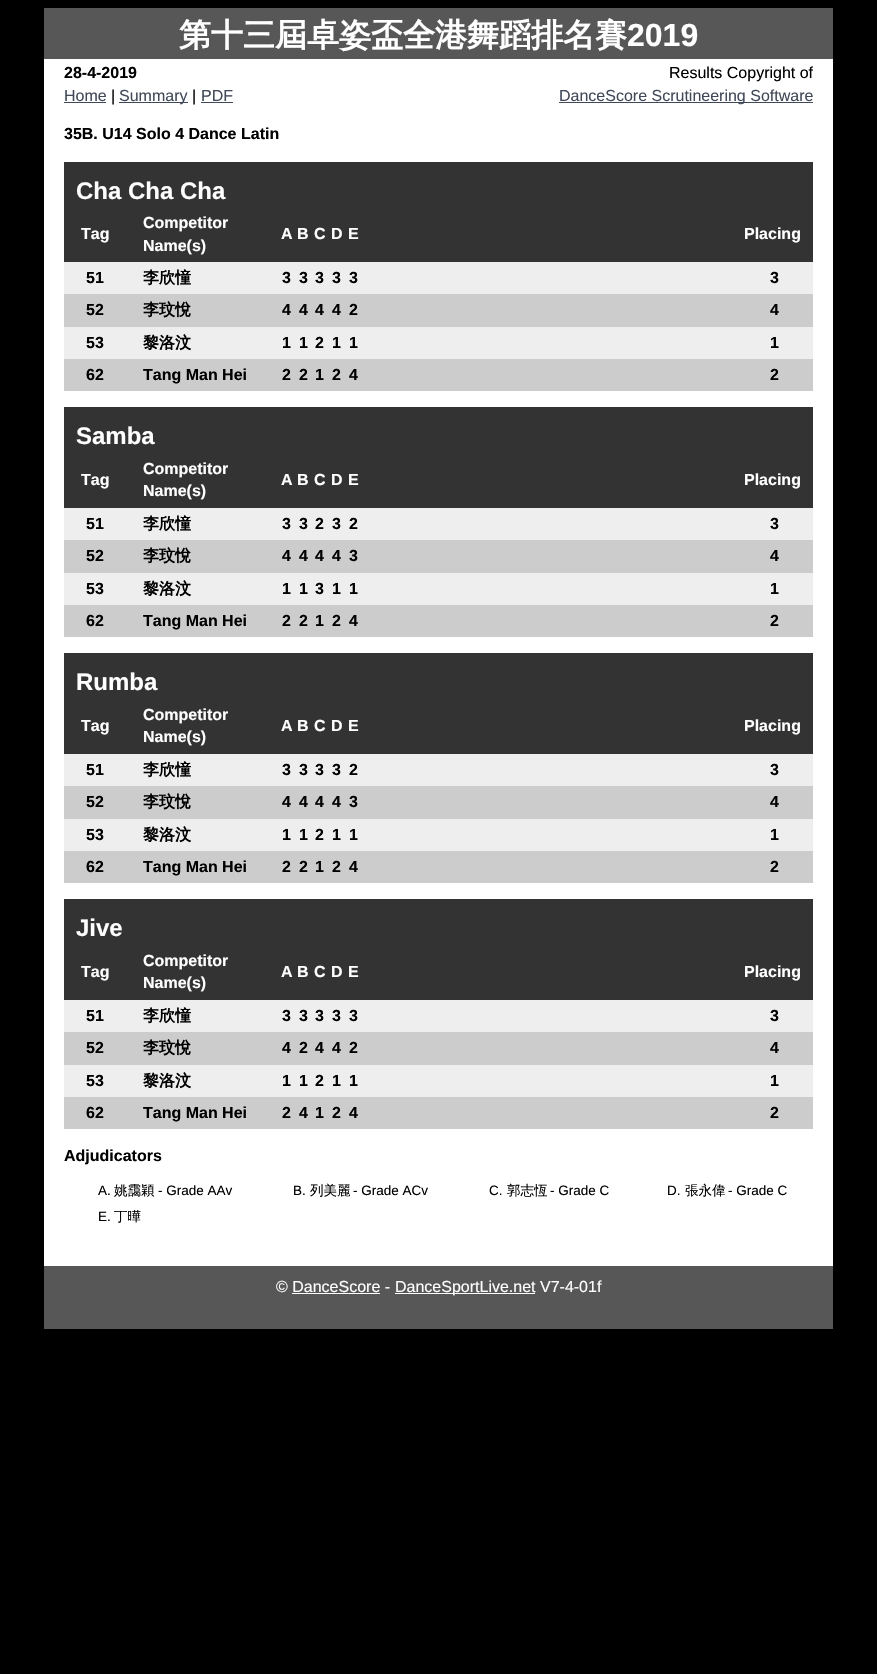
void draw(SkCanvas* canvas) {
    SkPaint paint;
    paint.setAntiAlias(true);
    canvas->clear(0xFF000000);
    paint.setColor(0xFFFFFFFF);
    canvas->drawRect(SkRect::MakeXYWH(44, 59, 789, 1207), paint);
    paint.setColor(0xFF575757);
    canvas->drawRect(SkRect::MakeXYWH(44, 8, 789, 51), paint);
    SkFont font1(fontMgr->matchFamilyStyle("WenQuanYi Zen Hei", SkFontStyle::Bold()), 32);
    font1.setSubpixel(true);
    paint.setColor(0xFFFFFFFF);
    canvas->drawString("第十三屆卓姿盃全港舞蹈排名賽", 179, 46, font1, paint);
    SkFont font2(fontMgr->matchFamilyStyle("Liberation Sans", SkFontStyle::Bold()), 32);
    font2.setSubpixel(true);
    canvas->drawString("2019", 627, 46, font2, paint);
    SkFont font3(fontMgr->matchFamilyStyle("Liberation Sans", SkFontStyle::Bold()), 16);
    font3.setSubpixel(true);
    paint.setColor(0xFF000000);
    canvas->drawString("28-4-2019", 64, 78, font3, paint);
    SkFont font4(fontMgr->matchFamilyStyle("Liberation Sans", SkFontStyle::Normal()), 16);
    font4.setSubpixel(true);
    canvas->drawString("Results Copyright of", 669, 78, font4, paint);
    paint.setColor(0xFF414958);
    canvas->drawString("Home", 64, 101, font4, paint);
    canvas->drawRect(SkRect::MakeXYWH(64, 102, 42, 1), paint);
    paint.setColor(0xFF000000);
    canvas->drawString("|", 111, 101, font4, paint);
    paint.setColor(0xFF414958);
    canvas->drawRect(SkRect::MakeXYWH(119, 102, 69, 1), paint);
    canvas->drawString("Summary", 119, 101, font4, paint);
    paint.setColor(0xFF000000);
    canvas->drawString("|", 192, 101, font4, paint);
    paint.setColor(0xFF414958);
    canvas->drawString("PDF", 201, 101, font4, paint);
    canvas->drawRect(SkRect::MakeXYWH(201, 102, 32, 1), paint);
    canvas->drawRect(SkRect::MakeXYWH(559, 102, 254, 1), paint);
    canvas->drawString("DanceScore Scrutineering Software", 559, 101, font4, paint);
    paint.setColor(0xFF000000);
    canvas->drawString("35B. U14 Solo 4 Dance Latin", 64, 139, font3, paint);
    paint.setColor(0xFF333333);
    canvas->drawRect(SkRect::MakeXYWH(64, 162, 749, 45), paint);
    SkFont font5(fontMgr->matchFamilyStyle("Liberation Sans", SkFontStyle::Bold()), 24);
    font5.setSubpixel(true);
    paint.setColor(0xFFFFFFFF);
    canvas->drawString("Cha Cha Cha", 76, 199, font5, paint);
    paint.setColor(0xFF333333);
    canvas->drawRect(SkRect::MakeXYWH(64, 207, 749, 55), paint);
    paint.setColor(0xFFFFFFFF);
    canvas->drawString("Tag", 81, 239, font3, paint);
    canvas->drawString("Competitor", 143, 228, font3, paint);
    canvas->drawString("Name(s)", 143, 251, font3, paint);
    canvas->drawString("A", 281, 239, font3, paint);
    canvas->drawString("B", 297, 239, font3, paint);
    canvas->drawString("C", 314, 239, font3, paint);
    canvas->drawString("D", 331, 239, font3, paint);
    canvas->drawString("E", 348, 239, font3, paint);
    canvas->drawString("Placing", 744, 239, font3, paint);
    paint.setColor(0xFFEEEEEE);
    canvas->drawRect(SkRect::MakeXYWH(64, 262, 749, 32), paint);
    paint.setColor(0xFF000000);
    canvas->drawString("51", 86, 283, font3, paint);
    SkFont font6(fontMgr->matchFamilyStyle("WenQuanYi Zen Hei", SkFontStyle::Bold()), 16);
    font6.setSubpixel(true);
    canvas->drawString("李欣憧", 143, 283, font6, paint);
    canvas->drawString("3", 282, 283, font3, paint);
    canvas->drawString("3", 299, 283, font3, paint);
    canvas->drawString("3", 315, 283, font3, paint);
    canvas->drawString("3", 332, 283, font3, paint);
    canvas->drawString("3", 349, 283, font3, paint);
    canvas->drawString("3", 770, 283, font3, paint);
    paint.setColor(0xFFCCCCCC);
    canvas->drawRect(SkRect::MakeXYWH(64, 294, 749, 33), paint);
    paint.setColor(0xFF000000);
    canvas->drawString("52", 86, 315, font3, paint);
    canvas->drawString("李玟悅", 143, 315, font6, paint);
    canvas->drawString("4", 282, 315, font3, paint);
    canvas->drawString("4", 299, 315, font3, paint);
    canvas->drawString("4", 315, 315, font3, paint);
    canvas->drawString("4", 332, 315, font3, paint);
    canvas->drawString("2", 349, 315, font3, paint);
    canvas->drawString("4", 770, 315, font3, paint);
    paint.setColor(0xFFEEEEEE);
    canvas->drawRect(SkRect::MakeXYWH(64, 327, 749, 32), paint);
    paint.setColor(0xFF000000);
    canvas->drawString("53", 86, 348, font3, paint);
    canvas->drawString("黎洛汶", 143, 348, font6, paint);
    canvas->drawString("1", 282, 348, font3, paint);
    canvas->drawString("1", 299, 348, font3, paint);
    canvas->drawString("2", 315, 348, font3, paint);
    canvas->drawString("1", 332, 348, font3, paint);
    canvas->drawString("1", 349, 348, font3, paint);
    canvas->drawString("1", 770, 348, font3, paint);
    paint.setColor(0xFFCCCCCC);
    canvas->drawRect(SkRect::MakeXYWH(64, 359, 749, 32), paint);
    paint.setColor(0xFF000000);
    canvas->drawString("62", 86, 380, font3, paint);
    canvas->drawString("Tang Man Hei", 143, 380, font3, paint);
    canvas->drawString("2", 282, 380, font3, paint);
    canvas->drawString("2", 299, 380, font3, paint);
    canvas->drawString("1", 315, 380, font3, paint);
    canvas->drawString("2", 332, 380, font3, paint);
    canvas->drawString("4", 349, 380, font3, paint);
    canvas->drawString("2", 770, 380, font3, paint);
    paint.setColor(0xFF333333);
    canvas->drawRect(SkRect::MakeXYWH(64, 407, 749, 46), paint);
    paint.setColor(0xFFFFFFFF);
    canvas->drawString("Samba", 76, 444, font5, paint);
    paint.setColor(0xFF333333);
    canvas->drawRect(SkRect::MakeXYWH(64, 453, 749, 55), paint);
    paint.setColor(0xFFFFFFFF);
    canvas->drawString("Tag", 81, 485, font3, paint);
    canvas->drawString("Competitor", 143, 474, font3, paint);
    canvas->drawString("Name(s)", 143, 496, font3, paint);
    canvas->drawString("A", 281, 485, font3, paint);
    canvas->drawString("B", 297, 485, font3, paint);
    canvas->drawString("C", 314, 485, font3, paint);
    canvas->drawString("D", 331, 485, font3, paint);
    canvas->drawString("E", 348, 485, font3, paint);
    canvas->drawString("Placing", 744, 485, font3, paint);
    paint.setColor(0xFFEEEEEE);
    canvas->drawRect(SkRect::MakeXYWH(64, 508, 749, 32), paint);
    paint.setColor(0xFF000000);
    canvas->drawString("51", 86, 529, font3, paint);
    canvas->drawString("李欣憧", 143, 529, font6, paint);
    canvas->drawString("3", 282, 529, font3, paint);
    canvas->drawString("3", 299, 529, font3, paint);
    canvas->drawString("2", 315, 529, font3, paint);
    canvas->drawString("3", 332, 529, font3, paint);
    canvas->drawString("2", 349, 529, font3, paint);
    canvas->drawString("3", 770, 529, font3, paint);
    paint.setColor(0xFFCCCCCC);
    canvas->drawRect(SkRect::MakeXYWH(64, 540, 749, 33), paint);
    paint.setColor(0xFF000000);
    canvas->drawString("52", 86, 561, font3, paint);
    canvas->drawString("李玟悅", 143, 561, font6, paint);
    canvas->drawString("4", 282, 561, font3, paint);
    canvas->drawString("4", 299, 561, font3, paint);
    canvas->drawString("4", 315, 561, font3, paint);
    canvas->drawString("4", 332, 561, font3, paint);
    canvas->drawString("3", 349, 561, font3, paint);
    canvas->drawString("4", 770, 561, font3, paint);
    paint.setColor(0xFFEEEEEE);
    canvas->drawRect(SkRect::MakeXYWH(64, 573, 749, 32), paint);
    paint.setColor(0xFF000000);
    canvas->drawString("53", 86, 594, font3, paint);
    canvas->drawString("黎洛汶", 143, 594, font6, paint);
    canvas->drawString("1", 282, 594, font3, paint);
    canvas->drawString("1", 299, 594, font3, paint);
    canvas->drawString("3", 315, 594, font3, paint);
    canvas->drawString("1", 332, 594, font3, paint);
    canvas->drawString("1", 349, 594, font3, paint);
    canvas->drawString("1", 770, 594, font3, paint);
    paint.setColor(0xFFCCCCCC);
    canvas->drawRect(SkRect::MakeXYWH(64, 605, 749, 32), paint);
    paint.setColor(0xFF000000);
    canvas->drawString("62", 86, 626, font3, paint);
    canvas->drawString("Tang Man Hei", 143, 626, font3, paint);
    canvas->drawString("2", 282, 626, font3, paint);
    canvas->drawString("2", 299, 626, font3, paint);
    canvas->drawString("1", 315, 626, font3, paint);
    canvas->drawString("2", 332, 626, font3, paint);
    canvas->drawString("4", 349, 626, font3, paint);
    canvas->drawString("2", 770, 626, font3, paint);
    paint.setColor(0xFF333333);
    canvas->drawRect(SkRect::MakeXYWH(64, 653, 749, 46), paint);
    paint.setColor(0xFFFFFFFF);
    canvas->drawString("Rumba", 76, 690, font5, paint);
    paint.setColor(0xFF333333);
    canvas->drawRect(SkRect::MakeXYWH(64, 699, 749, 55), paint);
    paint.setColor(0xFFFFFFFF);
    canvas->drawString("Tag", 81, 731, font3, paint);
    canvas->drawString("Competitor", 143, 720, font3, paint);
    canvas->drawString("Name(s)", 143, 742, font3, paint);
    canvas->drawString("A", 281, 731, font3, paint);
    canvas->drawString("B", 297, 731, font3, paint);
    canvas->drawString("C", 314, 731, font3, paint);
    canvas->drawString("D", 331, 731, font3, paint);
    canvas->drawString("E", 348, 731, font3, paint);
    canvas->drawString("Placing", 744, 731, font3, paint);
    paint.setColor(0xFFEEEEEE);
    canvas->drawRect(SkRect::MakeXYWH(64, 754, 749, 32), paint);
    paint.setColor(0xFF000000);
    canvas->drawString("51", 86, 775, font3, paint);
    canvas->drawString("李欣憧", 143, 775, font6, paint);
    canvas->drawString("3", 282, 775, font3, paint);
    canvas->drawString("3", 299, 775, font3, paint);
    canvas->drawString("3", 315, 775, font3, paint);
    canvas->drawString("3", 332, 775, font3, paint);
    canvas->drawString("2", 349, 775, font3, paint);
    canvas->drawString("3", 770, 775, font3, paint);
    paint.setColor(0xFFCCCCCC);
    canvas->drawRect(SkRect::MakeXYWH(64, 786, 749, 33), paint);
    paint.setColor(0xFF000000);
    canvas->drawString("52", 86, 807, font3, paint);
    canvas->drawString("李玟悅", 143, 807, font6, paint);
    canvas->drawString("4", 282, 807, font3, paint);
    canvas->drawString("4", 299, 807, font3, paint);
    canvas->drawString("4", 315, 807, font3, paint);
    canvas->drawString("4", 332, 807, font3, paint);
    canvas->drawString("3", 349, 807, font3, paint);
    canvas->drawString("4", 770, 807, font3, paint);
    paint.setColor(0xFFEEEEEE);
    canvas->drawRect(SkRect::MakeXYWH(64, 819, 749, 32), paint);
    paint.setColor(0xFF000000);
    canvas->drawString("53", 86, 840, font3, paint);
    canvas->drawString("黎洛汶", 143, 840, font6, paint);
    canvas->drawString("1", 282, 840, font3, paint);
    canvas->drawString("1", 299, 840, font3, paint);
    canvas->drawString("2", 315, 840, font3, paint);
    canvas->drawString("1", 332, 840, font3, paint);
    canvas->drawString("1", 349, 840, font3, paint);
    canvas->drawString("1", 770, 840, font3, paint);
    paint.setColor(0xFFCCCCCC);
    canvas->drawRect(SkRect::MakeXYWH(64, 851, 749, 32), paint);
    paint.setColor(0xFF000000);
    canvas->drawString("62", 86, 872, font3, paint);
    canvas->drawString("Tang Man Hei", 143, 872, font3, paint);
    canvas->drawString("2", 282, 872, font3, paint);
    canvas->drawString("2", 299, 872, font3, paint);
    canvas->drawString("1", 315, 872, font3, paint);
    canvas->drawString("2", 332, 872, font3, paint);
    canvas->drawString("4", 349, 872, font3, paint);
    canvas->drawString("2", 770, 872, font3, paint);
    paint.setColor(0xFF333333);
    canvas->drawRect(SkRect::MakeXYWH(64, 899, 749, 46), paint);
    paint.setColor(0xFFFFFFFF);
    canvas->drawString("Jive", 76, 936, font5, paint);
    paint.setColor(0xFF333333);
    canvas->drawRect(SkRect::MakeXYWH(64, 945, 749, 55), paint);
    paint.setColor(0xFFFFFFFF);
    canvas->drawString("Tag", 81, 977, font3, paint);
    canvas->drawString("Competitor", 143, 966, font3, paint);
    canvas->drawString("Name(s)", 143, 988, font3, paint);
    canvas->drawString("A", 281, 977, font3, paint);
    canvas->drawString("B", 297, 977, font3, paint);
    canvas->drawString("C", 314, 977, font3, paint);
    canvas->drawString("D", 331, 977, font3, paint);
    canvas->drawString("E", 348, 977, font3, paint);
    canvas->drawString("Placing", 744, 977, font3, paint);
    paint.setColor(0xFFEEEEEE);
    canvas->drawRect(SkRect::MakeXYWH(64, 1000, 749, 32), paint);
    paint.setColor(0xFF000000);
    canvas->drawString("51", 86, 1021, font3, paint);
    canvas->drawString("李欣憧", 143, 1021, font6, paint);
    canvas->drawString("3", 282, 1021, font3, paint);
    canvas->drawString("3", 299, 1021, font3, paint);
    canvas->drawString("3", 315, 1021, font3, paint);
    canvas->drawString("3", 332, 1021, font3, paint);
    canvas->drawString("3", 349, 1021, font3, paint);
    canvas->drawString("3", 770, 1021, font3, paint);
    paint.setColor(0xFFCCCCCC);
    canvas->drawRect(SkRect::MakeXYWH(64, 1032, 749, 33), paint);
    paint.setColor(0xFF000000);
    canvas->drawString("52", 86, 1053, font3, paint);
    canvas->drawString("李玟悅", 143, 1053, font6, paint);
    canvas->drawString("4", 282, 1053, font3, paint);
    canvas->drawString("2", 299, 1053, font3, paint);
    canvas->drawString("4", 315, 1053, font3, paint);
    canvas->drawString("4", 332, 1053, font3, paint);
    canvas->drawString("2", 349, 1053, font3, paint);
    canvas->drawString("4", 770, 1053, font3, paint);
    paint.setColor(0xFFEEEEEE);
    canvas->drawRect(SkRect::MakeXYWH(64, 1065, 749, 32), paint);
    paint.setColor(0xFF000000);
    canvas->drawString("53", 86, 1086, font3, paint);
    canvas->drawString("黎洛汶", 143, 1086, font6, paint);
    canvas->drawString("1", 282, 1086, font3, paint);
    canvas->drawString("1", 299, 1086, font3, paint);
    canvas->drawString("2", 315, 1086, font3, paint);
    canvas->drawString("1", 332, 1086, font3, paint);
    canvas->drawString("1", 349, 1086, font3, paint);
    canvas->drawString("1", 770, 1086, font3, paint);
    paint.setColor(0xFFCCCCCC);
    canvas->drawRect(SkRect::MakeXYWH(64, 1097, 749, 32), paint);
    paint.setColor(0xFF000000);
    canvas->drawString("62", 86, 1118, font3, paint);
    canvas->drawString("Tang Man Hei", 143, 1118, font3, paint);
    canvas->drawString("2", 282, 1118, font3, paint);
    canvas->drawString("4", 299, 1118, font3, paint);
    canvas->drawString("1", 315, 1118, font3, paint);
    canvas->drawString("2", 332, 1118, font3, paint);
    canvas->drawString("4", 349, 1118, font3, paint);
    canvas->drawString("2", 770, 1118, font3, paint);
    canvas->drawString("Adjudicators", 64, 1161, font3, paint);
    SkFont font7(fontMgr->matchFamilyStyle("Liberation Sans", SkFontStyle::Normal()), 13.5f);
    font7.setSubpixel(true);
    canvas->drawString("A.", 98, 1195, font7, paint);
    SkFont font8(fontMgr->matchFamilyStyle("WenQuanYi Zen Hei", SkFontStyle(500, SkFontStyle::kNormal_Width, SkFontStyle::kUpright_Slant)), 13.5f);
    font8.setSubpixel(true);
    canvas->drawString("姚靄穎", 114, 1195, font8, paint);
    canvas->drawString("- Grade AAv", 158, 1195, font7, paint);
    canvas->drawString("B.", 293, 1195, font7, paint);
    canvas->drawString("列美麗", 310, 1195, font8, paint);
    canvas->drawString("- Grade ACv", 353, 1195, font7, paint);
    canvas->drawString("C.", 489, 1195, font7, paint);
    canvas->drawString("郭志恆", 507, 1195, font8, paint);
    canvas->drawString("- Grade C", 550, 1195, font7, paint);
    canvas->drawString("D.", 667, 1195, font7, paint);
    canvas->drawString("張永偉", 685, 1195, font8, paint);
    canvas->drawString("- Grade C", 728, 1195, font7, paint);
    canvas->drawString("E.", 98, 1221, font7, paint);
    canvas->drawString("丁曄", 114, 1221, font8, paint);
    paint.setColor(0xFF575757);
    canvas->drawRect(SkRect::MakeXYWH(44, 1266, 789, 63), paint);
    paint.setColor(0xFFFFFFFF);
    canvas->drawString("© DanceScore -", 276, 1292, font4, paint);
    canvas->drawRect(SkRect::MakeXYWH(395, 1293, 140, 1), paint);
    canvas->drawString("DanceSportLive.net V7-4-01f", 395, 1292, font4, paint);
    canvas->drawRect(SkRect::MakeXYWH(292, 1293, 88, 1), paint);
}
